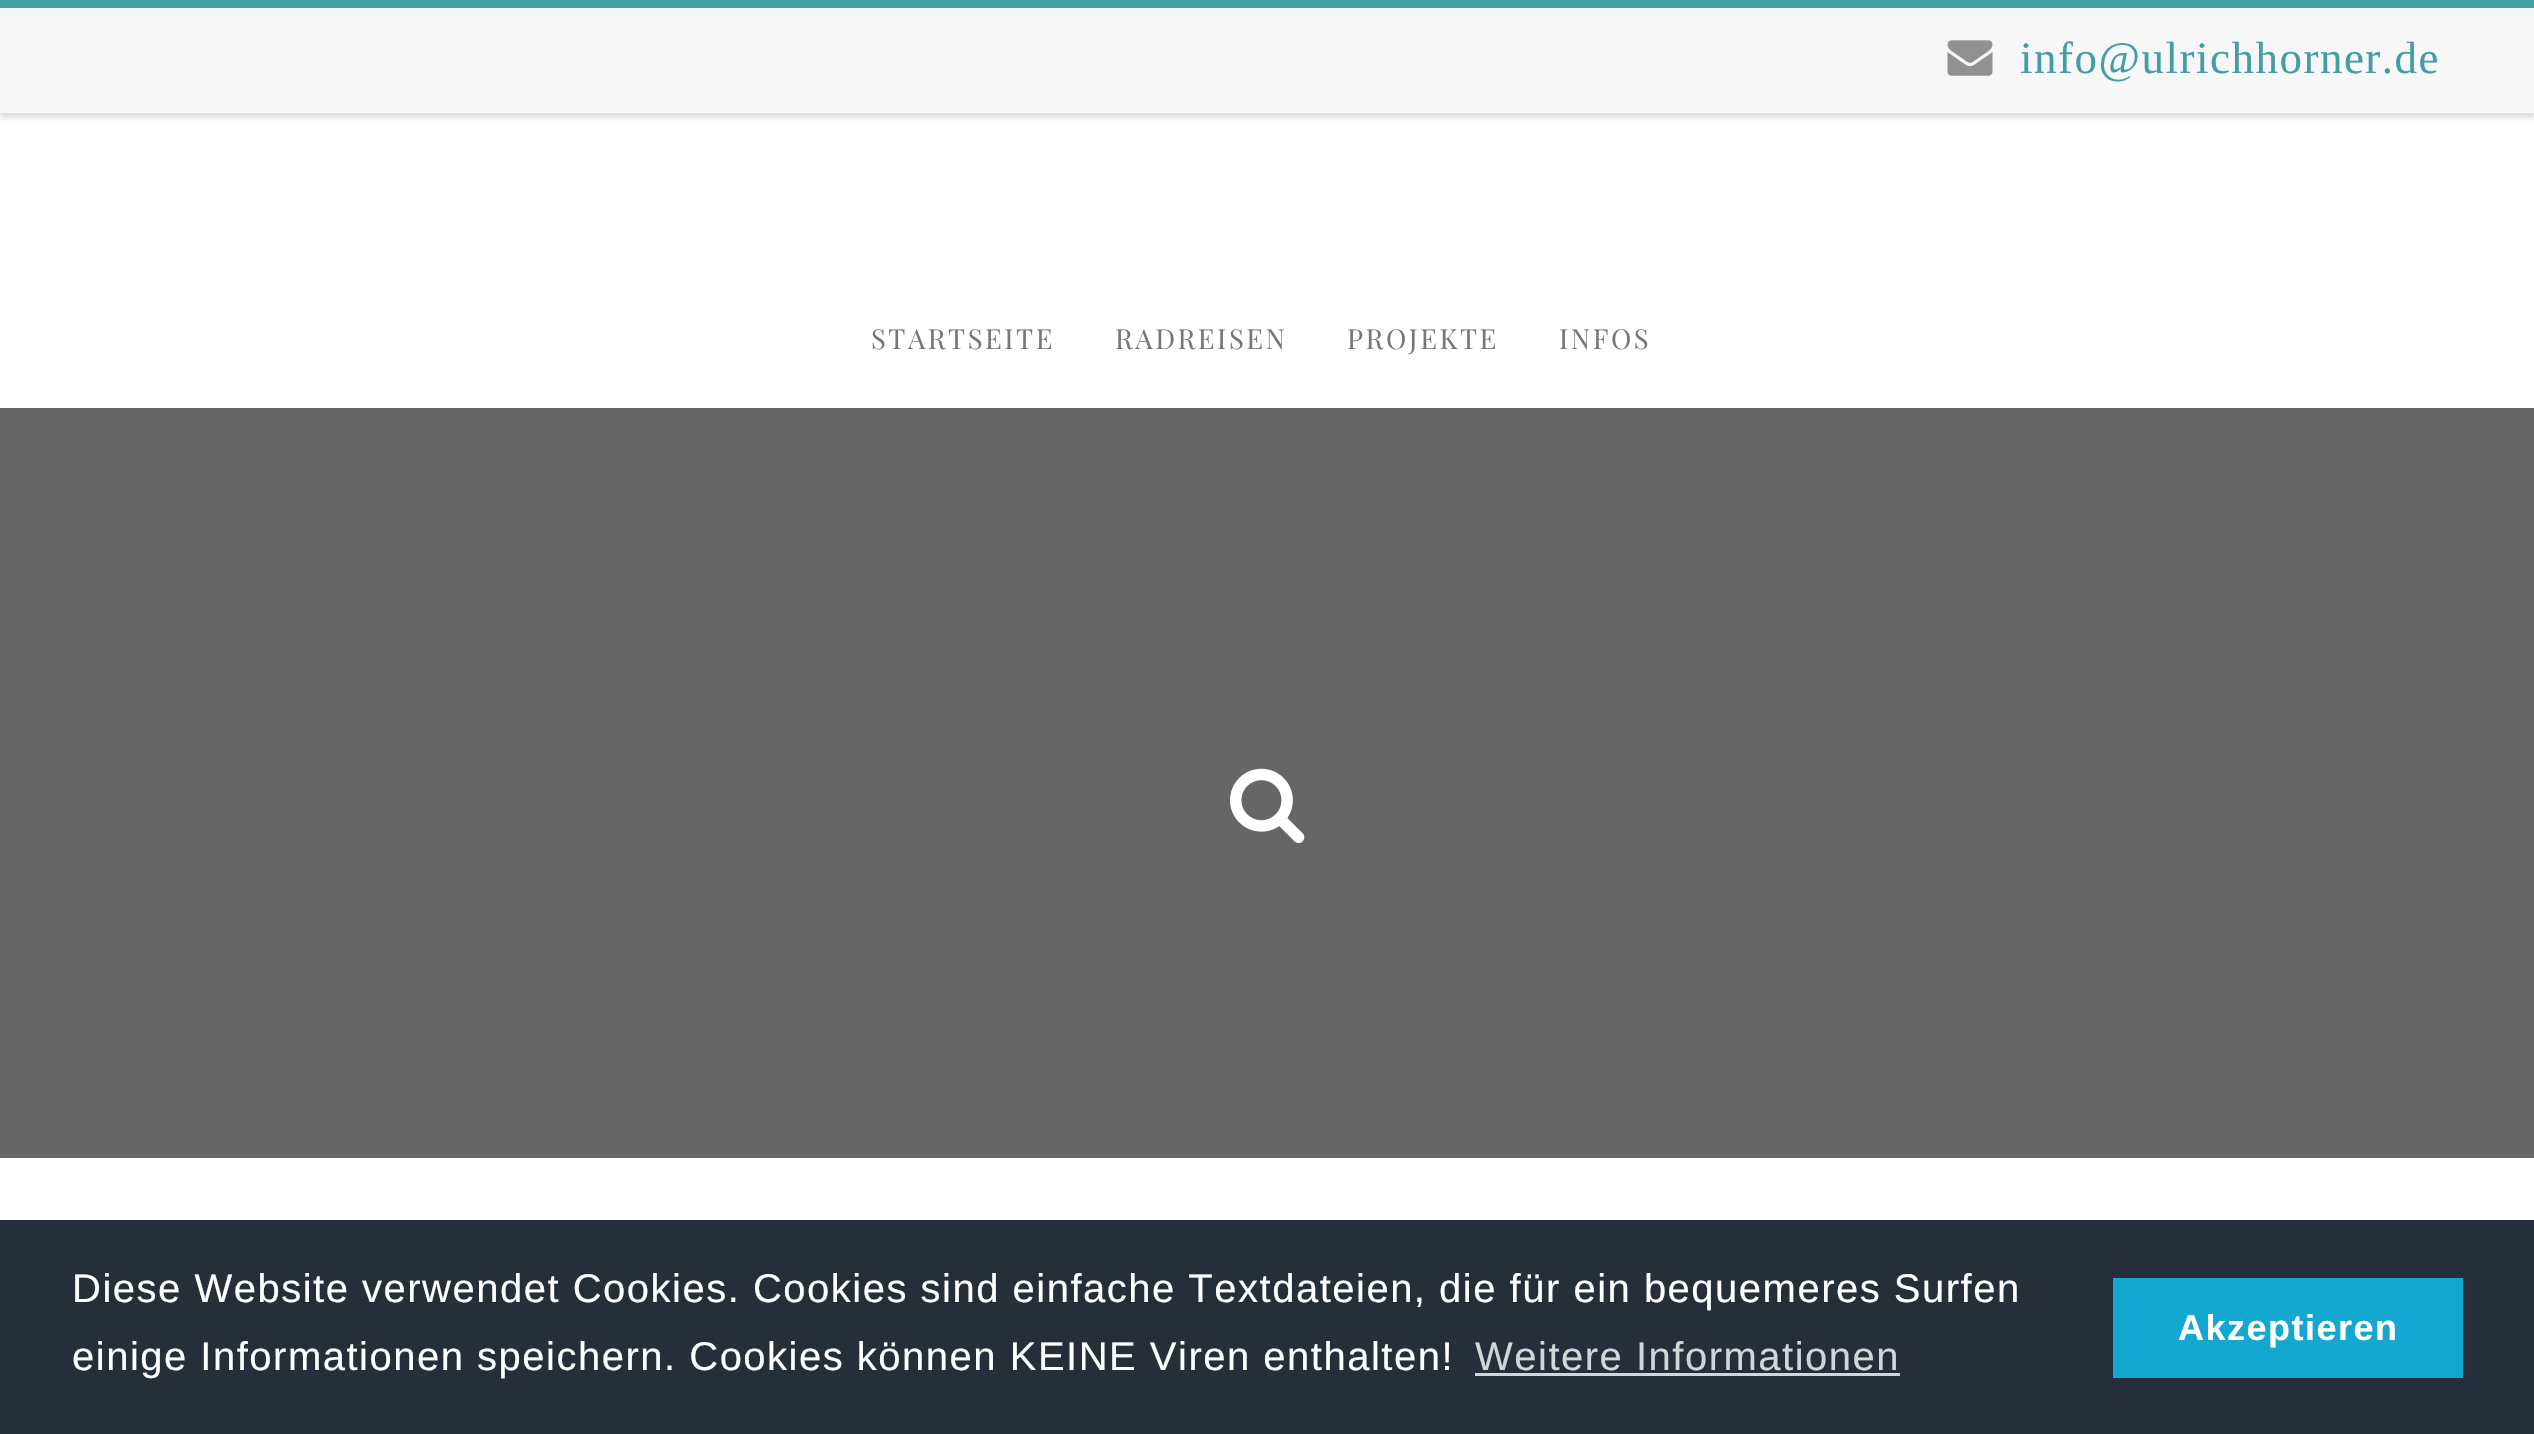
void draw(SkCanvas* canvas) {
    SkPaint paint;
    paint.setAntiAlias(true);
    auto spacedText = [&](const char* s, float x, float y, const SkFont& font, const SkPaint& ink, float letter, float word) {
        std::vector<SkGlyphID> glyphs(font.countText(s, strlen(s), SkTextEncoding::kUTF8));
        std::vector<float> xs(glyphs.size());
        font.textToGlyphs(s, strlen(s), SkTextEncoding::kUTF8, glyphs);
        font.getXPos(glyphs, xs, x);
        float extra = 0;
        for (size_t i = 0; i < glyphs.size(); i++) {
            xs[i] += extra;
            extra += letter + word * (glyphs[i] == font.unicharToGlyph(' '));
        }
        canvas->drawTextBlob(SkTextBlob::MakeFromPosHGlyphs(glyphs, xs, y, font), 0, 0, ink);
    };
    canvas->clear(0xFFFFFFFF);
    paint.setColor(0xFFDEDEDE);
    paint.setMaskFilter(SkMaskFilter::MakeBlur(kNormal_SkBlurStyle, 2.5f));
    canvas->drawRect(SkRect::MakeXYWH(0, 5, 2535, 113), paint);
    paint.setMaskFilter(nullptr);
    paint.setColor(0xFFF7F7F7);
    canvas->drawRect(SkRect::MakeXYWH(0, 8, 2534, 105), paint);
    paint.setColor(0xFF439EA2);
    canvas->drawRect(SkRect::MakeXYWH(0, 0, 2534, 8), paint);
    canvas->drawImageRect(SkImages::DeferredFromEncodedData(SkData::MakeFromFileName("img1.png")), SkRect::MakeXYWH(1947, 40, 46, 36), SkSamplingOptions());
    SkFont font1(fontMgr->matchFamilyStyle("Liberation Serif", SkFontStyle::Normal()), 45);
    font1.setSubpixel(true);
    spacedText("info@ulrichhorner.de", 2020, 73, font1, paint, 1.5f, 0);
    SkFont font2(fontMgr->matchFamilyStyle("Playfair Display", SkFontStyle::Normal()), 27.5f);
    font2.setSubpixel(true);
    paint.setColor(0xFF777777);
    spacedText("STARTSEITE", 871, 349, font2, paint, 2.5f, 0);
    spacedText("RADREISEN", 1115, 349, font2, paint, 2.5f, 0);
    spacedText("PROJEKTE", 1347, 349, font2, paint, 2.5f, 0);
    spacedText("INFOS", 1559, 349, font2, paint, 2.5f, 0);
    paint.setColor(0xFF666666);
    canvas->drawRect(SkRect::MakeXYWH(0, 408, 2534, 750), paint);
    canvas->drawImageRect(SkImages::DeferredFromEncodedData(SkData::MakeFromFileName("img2.png")), SkRect::MakeXYWH(1230, 768, 75, 75), SkSamplingOptions());
    paint.setColor(0xFF252E39);
    canvas->drawRect(SkRect::MakeXYWH(0, 1220, 2534, 214), paint);
    SkFont font3(fontMgr->matchFamilyStyle("Liberation Sans", SkFontStyle::Normal()), 40);
    font3.setSubpixel(true);
    paint.setColor(0xFFFFFFFF);
    spacedText("Diese Website verwendet Cookies. Cookies sind einfache Textdateien, die für ein bequemeres Surfen", 72, 1302, font3, paint, 1.5f, 0);
    spacedText("einige Informationen speichern. Cookies können KEINE Viren enthalten!", 72, 1370, font3, paint, 1.5f, 0);
    paint.setColor(0xFFD3D5D7);
    spacedText("Weitere Informationen", 1475, 1370, font3, paint, 1.5f, 0);
    canvas->drawRect(SkRect::MakeXYWH(1475, 1373, 425, 3), paint);
    paint.setColor(0xFF14A7D0);
    canvas->drawRect(SkRect::MakeXYWH(2113, 1278, 350, 100), paint);
    SkFont font4(fontMgr->matchFamilyStyle("Liberation Sans", SkFontStyle::Bold()), 36);
    font4.setSubpixel(true);
    paint.setColor(0xFFFFFFFF);
    spacedText("Akzeptieren", 2178, 1340, font4, paint, 1.5f, 0);
}
